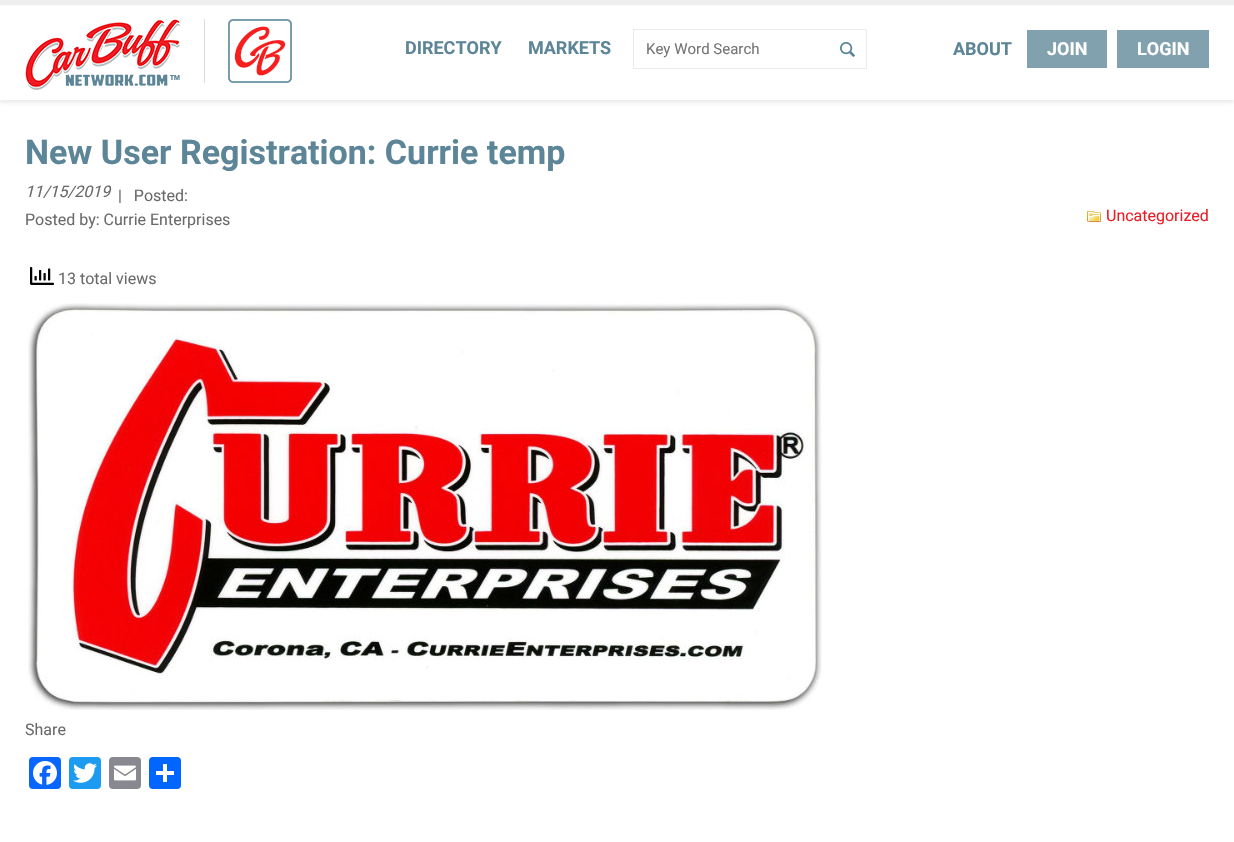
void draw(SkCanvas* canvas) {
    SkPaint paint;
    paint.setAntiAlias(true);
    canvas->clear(0xFFFFFFFF);
    paint.setColor(0x12000000);
    paint.setMaskFilter(SkMaskFilter::MakeBlur(kNormal_SkBlurStyle, 1.5f));
    canvas->drawRect(SkRect::MakeXYWH(0, 3, 1234, 100), paint);
    paint.setMaskFilter(nullptr);
    paint.setColor(0xFFFFFFFF);
    canvas->drawRect(SkRect::MakeXYWH(0, 5, 1234, 95), paint);
    paint.setColor(0xFFEEEEEE);
    canvas->drawRect(SkRect::MakeXYWH(0, 0, 1234, 5), paint);
    canvas->drawImageRect(SkImages::DeferredFromEncodedData(SkData::MakeFromFileName("img1.png")), SkRect::MakeXYWH(25, 19, 155, 71), SkSamplingOptions());
    paint.setColor(0xFFDCDCDC);
    canvas->drawRect(SkRect::MakeXYWH(204, 19, 1, 64), paint);
    canvas->drawImageRect(SkImages::DeferredFromEncodedData(SkData::MakeFromFileName("img2.png")), SkRect::MakeXYWH(228, 19, 64, 64), SkSamplingOptions());
    SkFont font1(fontMgr->matchFamilyStyle("Roboto", SkFontStyle::Bold()), 18);
    font1.setSubpixel(true);
    paint.setColor(0xFF5C8597);
    canvas->drawString("DIRECTORY", 405, 54, font1, paint);
    canvas->drawString("MARKETS", 528, 54, font1, paint);
    paint.setStyle(SkPaint::kStroke_Style);
    paint.setStrokeWidth(1);
    paint.setColor(0xFFEBEBEB);
    canvas->drawRect(SkRect::MakeXYWH(633.5f, 29.5f, 233, 39), paint);
    SkFont font2(fontMgr->matchFamilyStyle("Roboto", SkFontStyle::Normal()), 15);
    font2.setSubpixel(true);
    paint.setStyle(SkPaint::kFill_Style);
    paint.setColor(0xFF757575);
    canvas->drawString("Key Word Search", 646, 54, font2, paint);
    canvas->drawImageRect(SkImages::DeferredFromEncodedData(SkData::MakeFromFileName("img3.png")), SkRect::MakeXYWH(840, 42, 15, 15), SkSamplingOptions());
    paint.setColor(0xFF5C8597);
    canvas->drawString("ABOUT", 953, 55, font1, paint);
    paint.setColor(0xFF81A1AF);
    canvas->drawRect(SkRect::MakeXYWH(1027, 30, 80, 38), paint);
    paint.setColor(0xFFFFFFFF);
    canvas->drawString("JOIN", 1047, 55, font1, paint);
    paint.setColor(0xFF81A1AF);
    canvas->drawRect(SkRect::MakeXYWH(1117, 30, 92, 38), paint);
    paint.setColor(0xFFFFFFFF);
    canvas->drawString("LOGIN", 1137, 55, font1, paint);
    SkFont font3(fontMgr->matchFamilyStyle("Roboto", SkFontStyle::Bold()), 34);
    font3.setSubpixel(true);
    paint.setColor(0xFF5C8597);
    canvas->drawString("New User Registration: Currie temp", 25, 164, font3, paint);
    SkFont font4(fontMgr->matchFamilyStyle("Roboto", SkFontStyle::Italic()), 16);
    font4.setSubpixel(true);
    paint.setColor(0xFF6A6A6A);
    canvas->drawString("11/15/2019", 25, 197, font4, paint);
    SkFont font5(fontMgr->matchFamilyStyle("Roboto", SkFontStyle::Normal()), 16);
    font5.setSubpixel(true);
    canvas->drawString("|   Posted:", 118, 201, font5, paint);
    canvas->drawString("Posted by: Currie Enterprises", 25, 225, font5, paint);
    canvas->drawImageRect(SkImages::DeferredFromEncodedData(SkData::MakeFromFileName("img4.png")), SkRect::MakeXYWH(1087, 211, 14, 11), SkSamplingOptions());
    paint.setColor(0xFFEC1D25);
    canvas->drawString("Uncategorized", 1106, 221, font5, paint);
    canvas->drawImageRect(SkImages::DeferredFromEncodedData(SkData::MakeFromFileName("img5.png")), SkRect::MakeXYWH(30, 267, 24, 18), SkSamplingOptions());
    paint.setColor(0xFF6A6A6A);
    canvas->drawString("13 total views", 58, 284, font5, paint);
    canvas->drawImageRect(SkImages::DeferredFromEncodedData(SkData::MakeFromFileName("img6.png")), SkRect::MakeXYWH(28, 303, 794, 407), SkSamplingOptions());
    canvas->drawString("Share", 25, 735, font5, paint);
    paint.setColor(0xFF0866FF);
    canvas->drawRoundRect(SkRect::MakeXYWH(29, 757, 32, 32), 4, 4, paint);
    canvas->drawImageRect(SkImages::DeferredFromEncodedData(SkData::MakeFromFileName("img7.png")), SkRect::MakeXYWH(33, 761, 24, 24), SkSamplingOptions());
    paint.setColor(0xFF1D9BF0);
    canvas->drawRoundRect(SkRect::MakeXYWH(69, 757, 32, 32), 4, 4, paint);
    canvas->drawImageRect(SkImages::DeferredFromEncodedData(SkData::MakeFromFileName("img8.png")), SkRect::MakeXYWH(73, 763, 24, 20), SkSamplingOptions());
    paint.setColor(0xFF888990);
    canvas->drawRoundRect(SkRect::MakeXYWH(109, 757, 32, 32), 4, 4, paint);
    canvas->drawImageRect(SkImages::DeferredFromEncodedData(SkData::MakeFromFileName("img9.png")), SkRect::MakeXYWH(114, 765, 22, 16), SkSamplingOptions());
    paint.setColor(0xFF0166FF);
    canvas->drawRoundRect(SkRect::MakeXYWH(149, 757, 32, 32), 4, 4, paint);
    paint.setColor(0xFFFFFFFF);
    canvas->drawRect(SkRect::MakeXYWH(163, 764, 4, 18), paint);
    canvas->drawRect(SkRect::MakeXYWH(156, 771, 18, 4), paint);
}
